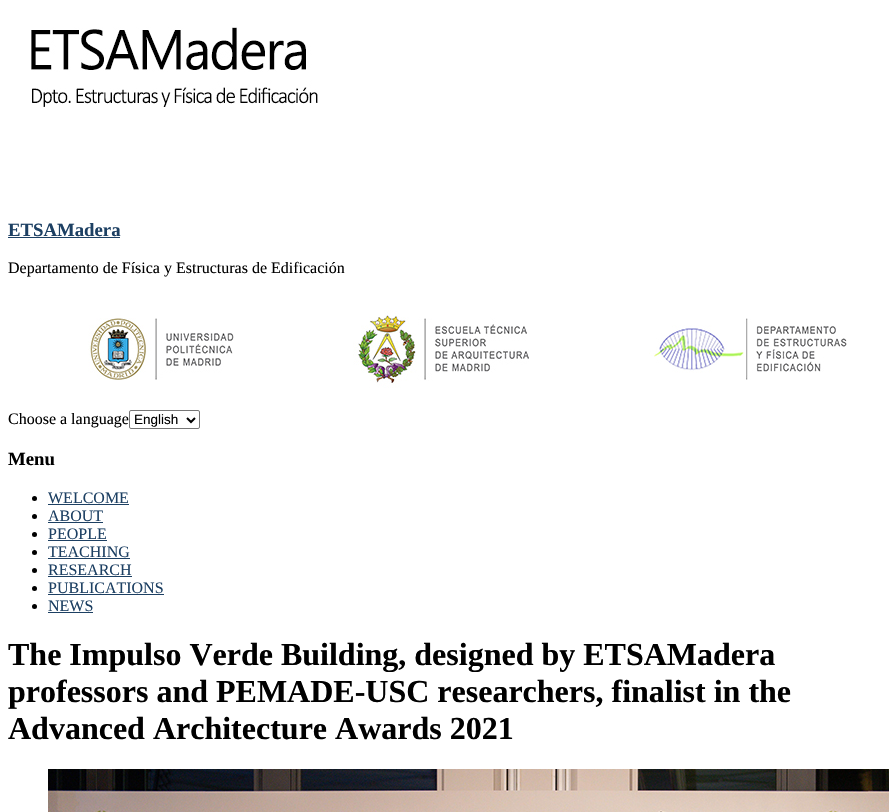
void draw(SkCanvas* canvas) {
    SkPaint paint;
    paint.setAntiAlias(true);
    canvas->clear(0xFFFFFFFF);
    canvas->drawImageRect(SkImages::DeferredFromEncodedData(SkData::MakeFromFileName("img1.png")), SkRect::MakeXYWH(31, 27, 287, 80), SkSamplingOptions());
    SkFont font1(fontMgr->matchFamilyStyle("Liberation Serif", SkFontStyle::Bold()), 18.75f);
    font1.setSubpixel(true);
    paint.setColor(0xFF1D4063);
    canvas->drawString("ETSAMadera", 8, 236, font1, paint);
    canvas->drawRect(SkRect::MakeXYWH(8, 237, 112, 1), paint);
    SkFont font2(fontMgr->matchFamilyStyle("Liberation Serif", SkFontStyle::Normal()), 16);
    font2.setSubpixel(true);
    paint.setColor(0xFF000000);
    canvas->drawString("Departamento de Física y Estructuras de Edificación", 8, 273, font2, paint);
    canvas->drawImageRect(SkImages::DeferredFromEncodedData(SkData::MakeFromFileName("img2.png")), SkRect::MakeXYWH(88, 318, 146, 62), SkSamplingOptions());
    canvas->drawImageRect(SkImages::DeferredFromEncodedData(SkData::MakeFromFileName("img3.png")), SkRect::MakeXYWH(353, 310, 176, 78), SkSamplingOptions());
    canvas->drawImageRect(SkImages::DeferredFromEncodedData(SkData::MakeFromFileName("img4.png")), SkRect::MakeXYWH(649, 318, 198, 62), SkSamplingOptions());
    canvas->drawString("Choose a language", 8, 424, font2, paint);
    paint.setStyle(SkPaint::kStroke_Style);
    paint.setStrokeWidth(1);
    paint.setColor(0xFF767676);
    canvas->drawRoundRect(SkRect::MakeXYWH(129.5f, 410.5f, 70, 18), 1.5f, 1.5f, paint);
    paint.setStrokeWidth(2);
    paint.setColor(0xFF000000);
    canvas->drawPath(SkPathBuilder().moveTo(187, 418).lineTo(191, 422).lineTo(195, 418).detach(), paint);
    SkFont font3(fontMgr->matchFamilyStyle("Liberation Sans", SkFontStyle::Normal()), 13.5f);
    font3.setSubpixel(true);
    paint.setStyle(SkPaint::kFill_Style);
    canvas->drawString("English", 134, 424, font3, paint);
    canvas->drawString("Menu", 8, 465, font1, paint);
    canvas->drawCircle(34.5f, 498.5f, 2.5f, paint);
    paint.setColor(0xFF1D4063);
    canvas->drawString("WELCOME", 48, 503, font2, paint);
    canvas->drawRect(SkRect::MakeXYWH(48, 504, 81, 1), paint);
    paint.setColor(0xFF000000);
    canvas->drawCircle(34.5f, 516.5f, 2.5f, paint);
    paint.setColor(0xFF1D4063);
    canvas->drawString("ABOUT", 48, 521, font2, paint);
    canvas->drawRect(SkRect::MakeXYWH(48, 522, 55, 1), paint);
    paint.setColor(0xFF000000);
    canvas->drawCircle(34.5f, 534.5f, 2.5f, paint);
    paint.setColor(0xFF1D4063);
    canvas->drawString("PEOPLE", 48, 539, font2, paint);
    canvas->drawRect(SkRect::MakeXYWH(48, 540, 59, 1), paint);
    paint.setColor(0xFF000000);
    canvas->drawCircle(34.5f, 552.5f, 2.5f, paint);
    paint.setColor(0xFF1D4063);
    canvas->drawString("TEACHING", 48, 557, font2, paint);
    canvas->drawRect(SkRect::MakeXYWH(48, 558, 82, 1), paint);
    paint.setColor(0xFF000000);
    canvas->drawCircle(34.5f, 570.5f, 2.5f, paint);
    paint.setColor(0xFF1D4063);
    canvas->drawString("RESEARCH", 48, 575, font2, paint);
    canvas->drawRect(SkRect::MakeXYWH(48, 576, 84, 1), paint);
    paint.setColor(0xFF000000);
    canvas->drawCircle(34.5f, 588.5f, 2.5f, paint);
    paint.setColor(0xFF1D4063);
    canvas->drawString("PUBLICATIONS", 48, 593, font2, paint);
    canvas->drawRect(SkRect::MakeXYWH(48, 594, 116, 1), paint);
    paint.setColor(0xFF000000);
    canvas->drawCircle(34.5f, 606.5f, 2.5f, paint);
    paint.setColor(0xFF1D4063);
    canvas->drawString("NEWS", 48, 611, font2, paint);
    canvas->drawRect(SkRect::MakeXYWH(48, 612, 45, 1), paint);
    SkFont font4(fontMgr->matchFamilyStyle("Liberation Serif", SkFontStyle::Bold()), 32);
    font4.setSubpixel(true);
    paint.setColor(0xFF000000);
    canvas->drawString("The Impulso Verde Building, designed by ETSAMadera", 8, 665, font4, paint);
    canvas->drawString("professors and PEMADE-USC researchers, finalist in the", 8, 702, font4, paint);
    canvas->drawString("Advanced Architecture Awards 2021", 8, 739, font4, paint);
    canvas->drawImageRect(SkImages::DeferredFromEncodedData(SkData::MakeFromFileName("img5.png")), SkRect::MakeXYWH(48, 769, 841, 43), SkSamplingOptions());
}
